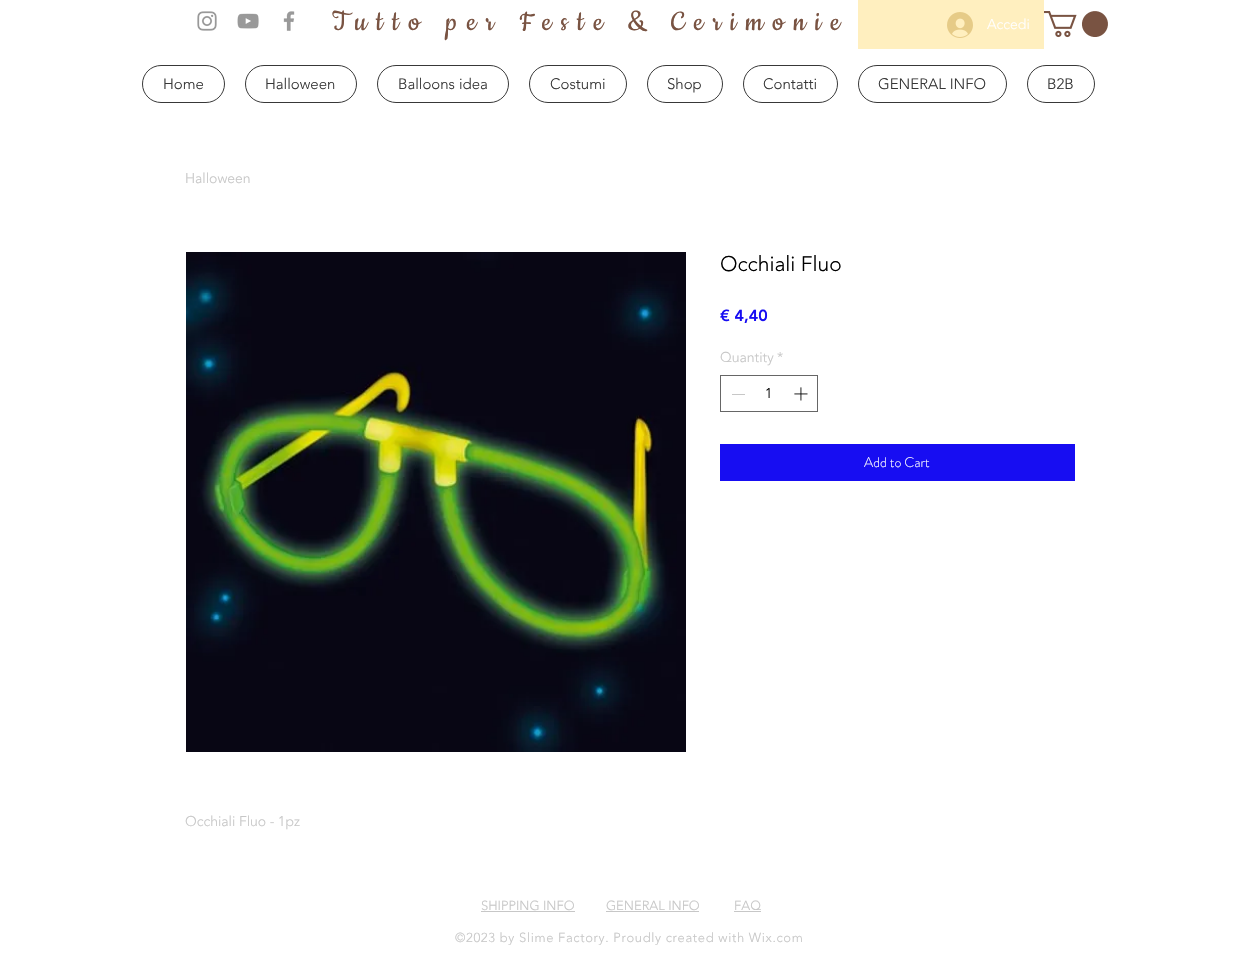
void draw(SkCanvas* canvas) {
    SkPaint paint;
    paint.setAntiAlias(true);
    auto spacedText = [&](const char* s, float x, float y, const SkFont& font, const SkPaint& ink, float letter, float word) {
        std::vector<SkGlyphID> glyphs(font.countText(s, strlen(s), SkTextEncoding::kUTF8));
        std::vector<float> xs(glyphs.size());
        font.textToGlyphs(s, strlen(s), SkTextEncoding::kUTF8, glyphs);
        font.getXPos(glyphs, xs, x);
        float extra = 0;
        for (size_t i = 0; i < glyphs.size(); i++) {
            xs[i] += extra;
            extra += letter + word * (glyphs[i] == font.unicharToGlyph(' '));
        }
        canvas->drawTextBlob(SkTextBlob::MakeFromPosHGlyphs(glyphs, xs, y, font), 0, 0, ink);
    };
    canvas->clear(0xFFFFFFFF);
    canvas->drawImageRect(SkImages::DeferredFromEncodedData(SkData::MakeFromFileName("img1.png")), SkRect::MakeXYWH(197, 11, 20, 20), SkSamplingOptions());
    canvas->drawImageRect(SkImages::DeferredFromEncodedData(SkData::MakeFromFileName("img2.png")), SkRect::MakeXYWH(237, 13, 22, 16), SkSamplingOptions());
    canvas->drawImageRect(SkImages::DeferredFromEncodedData(SkData::MakeFromFileName("img3.png")), SkRect::MakeXYWH(283, 11, 12, 20), SkSamplingOptions());
    SkFont font1(fontMgr->matchFamilyStyle("Cookie", SkFontStyle::Normal()), 32);
    font1.setSubpixel(true);
    paint.setColor(0xFF795342);
    spacedText("Tutto per Feste & Cerimonie", 332, 30, font1, paint, 9.6f, 0);
    paint.setColor(0xFFFFEFBF);
    canvas->drawRect(SkRect::MakeXYWH(858, 0, 186, 49), paint);
    canvas->drawImageRect(SkImages::DeferredFromEncodedData(SkData::MakeFromFileName("img4.png")), SkRect::MakeXYWH(947, 12, 26, 26), SkSamplingOptions());
    SkFont font2(fontMgr->matchFamilyStyle("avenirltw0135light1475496", SkFontStyle(300, SkFontStyle::kNormal_Width, SkFontStyle::kUpright_Slant)), 14);
    font2.setSubpixel(true);
    paint.setColor(0xFFFFFFFF);
    canvas->drawString("Accedi", 987, 29, font2, paint);
    canvas->drawImageRect(SkImages::DeferredFromEncodedData(SkData::MakeFromFileName("img5.png")), SkRect::MakeXYWH(1044, 11, 64, 27), SkSamplingOptions());
    paint.setStyle(SkPaint::kStroke_Style);
    paint.setStrokeWidth(1);
    paint.setColor(0xFF383838);
    canvas->drawRoundRect(SkRect::MakeXYWH(142.5f, 65.5f, 82, 37), 18.5f, 18.5f, paint);
    SkFont font3(fontMgr->matchFamilyStyle("avenirltw0135light1475496", SkFontStyle(300, SkFontStyle::kNormal_Width, SkFontStyle::kUpright_Slant)), 15);
    font3.setSubpixel(true);
    paint.setStyle(SkPaint::kFill_Style);
    canvas->drawString("Home", 163, 89, font3, paint);
    paint.setStyle(SkPaint::kStroke_Style);
    canvas->drawRoundRect(SkRect::MakeXYWH(245.5f, 65.5f, 111, 37), 18.5f, 18.5f, paint);
    paint.setStyle(SkPaint::kFill_Style);
    canvas->drawString("Halloween", 265, 89, font3, paint);
    paint.setStyle(SkPaint::kStroke_Style);
    canvas->drawRoundRect(SkRect::MakeXYWH(377.5f, 65.5f, 131, 37), 18.5f, 18.5f, paint);
    paint.setStyle(SkPaint::kFill_Style);
    canvas->drawString("Balloons idea", 398, 89, font3, paint);
    paint.setStyle(SkPaint::kStroke_Style);
    canvas->drawRoundRect(SkRect::MakeXYWH(529.5f, 65.5f, 97, 37), 18.5f, 18.5f, paint);
    paint.setStyle(SkPaint::kFill_Style);
    canvas->drawString("Costumi", 550, 89, font3, paint);
    paint.setStyle(SkPaint::kStroke_Style);
    canvas->drawRoundRect(SkRect::MakeXYWH(647.5f, 65.5f, 75, 37), 18.5f, 18.5f, paint);
    paint.setStyle(SkPaint::kFill_Style);
    canvas->drawString("Shop", 667, 89, font3, paint);
    paint.setStyle(SkPaint::kStroke_Style);
    canvas->drawRoundRect(SkRect::MakeXYWH(743.5f, 65.5f, 94, 37), 18.5f, 18.5f, paint);
    paint.setStyle(SkPaint::kFill_Style);
    canvas->drawString("Contatti", 763, 89, font3, paint);
    paint.setStyle(SkPaint::kStroke_Style);
    canvas->drawRoundRect(SkRect::MakeXYWH(858.5f, 65.5f, 148, 37), 18.5f, 18.5f, paint);
    paint.setStyle(SkPaint::kFill_Style);
    canvas->drawString("GENERAL INFO", 878, 89, font3, paint);
    paint.setStyle(SkPaint::kStroke_Style);
    canvas->drawRoundRect(SkRect::MakeXYWH(1027.5f, 65.5f, 67, 37), 18.5f, 18.5f, paint);
    paint.setStyle(SkPaint::kFill_Style);
    canvas->drawString("B2B", 1047, 89, font3, paint);
    paint.setColor(0xFFC7C7C7);
    canvas->drawString("Halloween", 185, 183, font2, paint);
    SkFont font4(fontMgr->matchFamilyStyle("avenirltw0135light1475496", SkFontStyle(300, SkFontStyle::kNormal_Width, SkFontStyle::kUpright_Slant)), 21);
    font4.setSubpixel(true);
    paint.setColor(0xFF000000);
    canvas->drawString("Occhiali Fluo", 720, 271, font4, paint);
    SkFont font5(fontMgr->matchFamilyStyle("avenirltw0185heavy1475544", SkFontStyle(900, SkFontStyle::kNormal_Width, SkFontStyle::kUpright_Slant)), 16);
    font5.setSubpixel(true);
    paint.setColor(0xFF170DF2);
    canvas->drawString("€ 4,40", 720, 321, font5, paint);
    paint.setColor(0xFFC7C7C7);
    canvas->drawString("Quantity", 720, 362, font2, paint);
    canvas->drawString("*", 777, 362, font2, paint);
    paint.setStyle(SkPaint::kStroke_Style);
    paint.setColor(0xFF666666);
    canvas->drawRect(SkRect::MakeXYWH(720.5f, 375.5f, 97, 36), paint);
    paint.setStyle(SkPaint::kFill_Style);
    paint.setColor(0xFFC7C7C7);
    canvas->drawRect(SkRect::MakeXYWH(732, 394, 13, 1), paint);
    paint.setColor(0xFF000000);
    canvas->drawString("1", 765, 398, font2, paint);
    canvas->drawImageRect(SkImages::DeferredFromEncodedData(SkData::MakeFromFileName("img6.png")), SkRect::MakeXYWH(794, 387, 14, 14), SkSamplingOptions());
    paint.setColor(0xFF170DF2);
    canvas->drawRect(SkRect::MakeXYWH(720, 444, 355, 37), paint);
    SkFont font6(fontMgr->matchFamilyStyle("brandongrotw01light", SkFontStyle(300, SkFontStyle::kNormal_Width, SkFontStyle::kUpright_Slant)), 14);
    font6.setSubpixel(true);
    paint.setColor(0xFFFFFFFF);
    canvas->drawString("Add to Cart", 864, 467, font6, paint);
    canvas->drawImageRect(SkImages::DeferredFromEncodedData(SkData::MakeFromFileName("img7.png")), SkRect::MakeXYWH(186, 252, 500, 500), SkSamplingOptions());
    paint.setColor(0xFFC7C7C7);
    canvas->drawString("Occhiali Fluo - 1pz", 185, 826, font2, paint);
    SkFont font7(fontMgr->matchFamilyStyle("avenirltw0135light1475496", SkFontStyle(300, SkFontStyle::kNormal_Width, SkFontStyle::kUpright_Slant)), 13);
    font7.setSubpixel(true);
    canvas->drawString("SHIPPING INFO", 481, 910, font7, paint);
    canvas->drawRect(SkRect::MakeXYWH(481, 911, 94, 1), paint);
    canvas->drawString("GENERAL INFO", 606, 910, font7, paint);
    canvas->drawRect(SkRect::MakeXYWH(606, 911, 93, 1), paint);
    canvas->drawString("FAQ", 734, 910, font7, paint);
    canvas->drawRect(SkRect::MakeXYWH(734, 911, 27, 1), paint);
    spacedText("©2023 by Slime Factory. Proudly created with Wix.com", 455, 942, font7, paint, 0.65f, 0);
}
